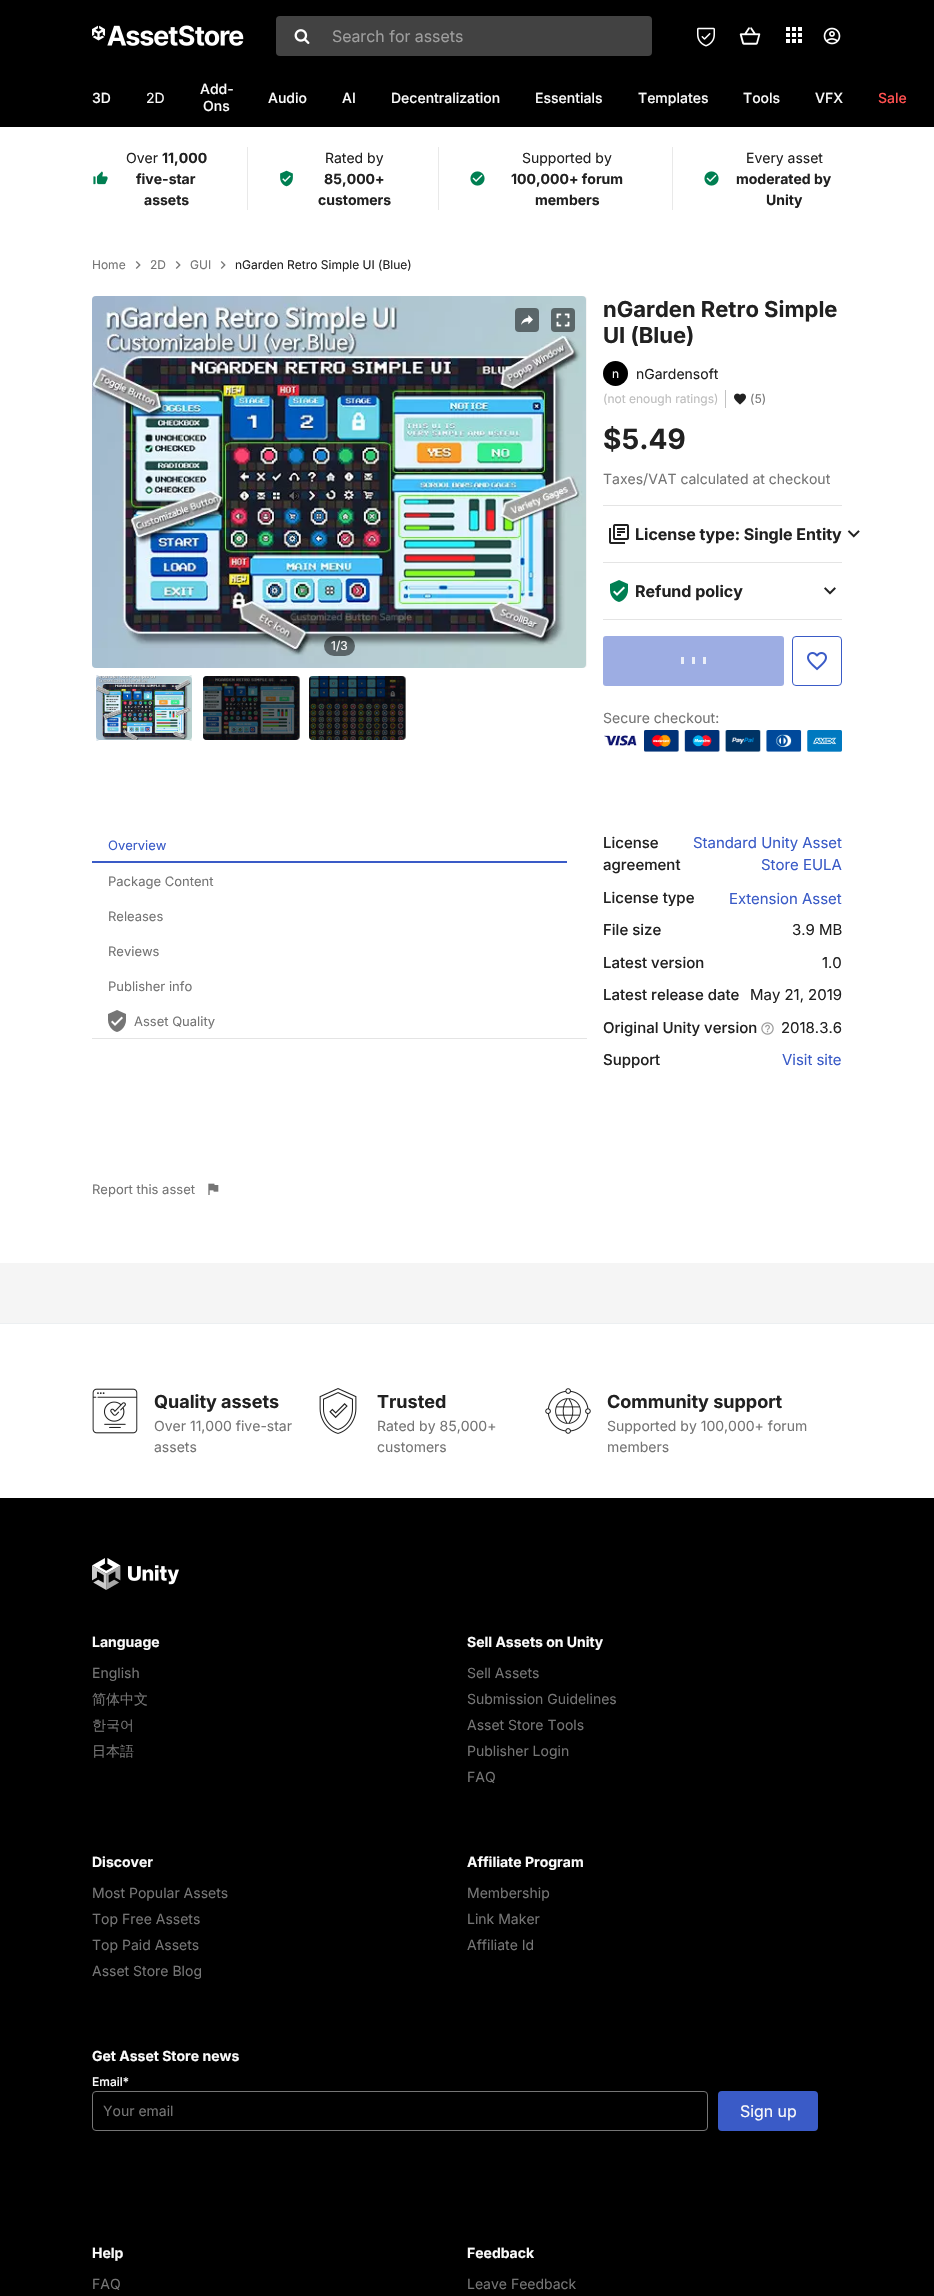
void draw(SkCanvas* canvas) {
    SkPaint paint;
    paint.setAntiAlias(true);
    canvas->clear(0xFFFFFFFF);
    paint.setColor(0xFF000000);
    canvas->drawRect(SkRect::MakeXYWH(0, 0, 934, 127), paint);
    canvas->drawImageRect(SkImages::DeferredFromEncodedData(SkData::MakeFromFileName("img1.png")), SkRect::MakeXYWH(92, 25, 152, 21), SkSamplingOptions());
    paint.setColor(0xFF424242);
    canvas->drawRoundRect(SkRect::MakeXYWH(276, 16, 376, 40), 4, 4, paint);
    canvas->drawImageRect(SkImages::DeferredFromEncodedData(SkData::MakeFromFileName("img2.png")), SkRect::MakeXYWH(294, 29, 16, 15), SkSamplingOptions());
    SkFont font1(fontMgr->matchFamilyStyle("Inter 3", SkFontStyle::Normal()), 16);
    font1.setSubpixel(true);
    paint.setColor(0xFF9E9E9E);
    canvas->drawString("Search for assets", 332, 42, font1, paint);
    canvas->drawImageRect(SkImages::DeferredFromEncodedData(SkData::MakeFromFileName("img3.png")), SkRect::MakeXYWH(697, 27, 18, 20), SkSamplingOptions());
    canvas->drawImageRect(SkImages::DeferredFromEncodedData(SkData::MakeFromFileName("img4.png")), SkRect::MakeXYWH(739, 27, 22, 18), SkSamplingOptions());
    canvas->drawImageRect(SkImages::DeferredFromEncodedData(SkData::MakeFromFileName("img5.png")), SkRect::MakeXYWH(786, 27, 16, 16), SkSamplingOptions());
    canvas->drawImageRect(SkImages::DeferredFromEncodedData(SkData::MakeFromFileName("img6.png")), SkRect::MakeXYWH(823, 27, 18, 18), SkSamplingOptions());
    SkFont font2(fontMgr->matchFamilyStyle("Inter", SkFontStyle(500, SkFontStyle::kNormal_Width, SkFontStyle::kUpright_Slant)), 14);
    font2.setSubpixel(true);
    paint.setColor(0xFFFAFAFA);
    canvas->drawString("3D", 92, 103, font2, paint);
    SkFont font3(fontMgr->matchFamilyStyle("Inter", SkFontStyle::Normal()), 14);
    font3.setSubpixel(true);
    canvas->drawString("2D", 146, 103, font3, paint);
    canvas->drawString("Add-", 200, 94, font2, paint);
    canvas->drawString("Ons", 203, 111, font2, paint);
    canvas->drawString("Audio", 268, 103, font2, paint);
    canvas->drawString("AI", 342, 103, font2, paint);
    canvas->drawString("Decentralization", 391, 103, font2, paint);
    canvas->drawString("Essentials", 535, 103, font2, paint);
    canvas->drawString("Templates", 638, 103, font2, paint);
    canvas->drawString("Tools", 743, 103, font2, paint);
    canvas->drawString("VFX", 815, 103, font2, paint);
    paint.setColor(0xFFFF5050);
    canvas->drawString("Sale", 878, 103, font2, paint);
    canvas->drawImageRect(SkImages::DeferredFromEncodedData(SkData::MakeFromFileName("img7.png")), SkRect::MakeXYWH(93, 171, 15, 14), SkSamplingOptions());
    paint.setColor(0xFF212121);
    canvas->drawString("Over", 126, 163, font3, paint);
    SkFont font4(fontMgr->matchFamilyStyle("Inter", SkFontStyle::Bold()), 14);
    font4.setSubpixel(true);
    canvas->drawString("11,000", 162, 163, font4, paint);
    canvas->drawString("five-star", 136, 184, font4, paint);
    canvas->drawString("assets", 144, 205, font4, paint);
    paint.setColor(0xFFE9E9E9);
    canvas->drawRect(SkRect::MakeXYWH(438, 147, 1, 63), paint);
    canvas->drawRect(SkRect::MakeXYWH(247, 147, 1, 63), paint);
    canvas->drawImageRect(SkImages::DeferredFromEncodedData(SkData::MakeFromFileName("img8.png")), SkRect::MakeXYWH(280, 170, 13, 17), SkSamplingOptions());
    paint.setColor(0xFF212121);
    canvas->drawString("Rated by", 325, 163, font3, paint);
    canvas->drawString("85,000+", 324, 184, font4, paint);
    canvas->drawString("customers", 318, 205, font4, paint);
    paint.setColor(0xFFE9E9E9);
    canvas->drawRect(SkRect::MakeXYWH(672, 147, 1, 63), paint);
    canvas->drawImageRect(SkImages::DeferredFromEncodedData(SkData::MakeFromFileName("img9.png")), SkRect::MakeXYWH(470, 171, 15, 15), SkSamplingOptions());
    paint.setColor(0xFF212121);
    canvas->drawString("Supported by", 522, 163, font3, paint);
    canvas->drawString("100,000+ forum", 511, 184, font4, paint);
    canvas->drawString("members", 535, 205, font4, paint);
    canvas->drawImageRect(SkImages::DeferredFromEncodedData(SkData::MakeFromFileName("img9.png")), SkRect::MakeXYWH(704, 171, 15, 15), SkSamplingOptions());
    canvas->drawString("Every asset", 746, 163, font3, paint);
    canvas->drawString("moderated by", 736, 184, font4, paint);
    canvas->drawString("Unity", 766, 205, font4, paint);
    SkFont font5(fontMgr->matchFamilyStyle("Inter", SkFontStyle::Normal()), 12);
    font5.setSubpixel(true);
    paint.setColor(0xFF757575);
    canvas->drawString("Home", 92, 269, font5, paint);
    canvas->drawImageRect(SkImages::DeferredFromEncodedData(SkData::MakeFromFileName("img10.png")), SkRect::MakeXYWH(135, 261, 6, 8), SkSamplingOptions());
    canvas->drawString("2D", 150, 269, font5, paint);
    canvas->drawImageRect(SkImages::DeferredFromEncodedData(SkData::MakeFromFileName("img10.png")), SkRect::MakeXYWH(175, 261, 6, 8), SkSamplingOptions());
    canvas->drawString("GUI", 190, 269, font5, paint);
    canvas->drawImageRect(SkImages::DeferredFromEncodedData(SkData::MakeFromFileName("img10.png")), SkRect::MakeXYWH(220, 261, 6, 8), SkSamplingOptions());
    paint.setColor(0xFF212121);
    canvas->drawString("nGarden Retro Simple UI (Blue)", 235, 269, font5, paint);
    paint.setColor(0xFFF5F5F5);
    canvas->drawRoundRect(SkRect::MakeXYWH(92, 296, 495, 372), 4, 4, paint);
    canvas->drawImageRect(SkImages::DeferredFromEncodedData(SkData::MakeFromFileName("img13.png")), SkRect::MakeXYWH(92, 296, 494, 372), SkSamplingOptions());
    paint.setColor(0x80000000);
    canvas->drawRoundRect(SkRect::MakeXYWH(515, 308, 24, 24), 4, 4, paint);
    canvas->drawImageRect(SkImages::DeferredFromEncodedData(SkData::MakeFromFileName("img11.png")), SkRect::MakeXYWH(521, 315, 12, 10), SkSamplingOptions());
    canvas->drawRoundRect(SkRect::MakeXYWH(551, 308, 24, 24), 4, 4, paint);
    canvas->drawImageRect(SkImages::DeferredFromEncodedData(SkData::MakeFromFileName("img12.png")), SkRect::MakeXYWH(556, 313, 14, 14), SkSamplingOptions());
    canvas->drawRoundRect(SkRect::MakeXYWH(324, 636, 31, 20), 10, 10, paint);
    paint.setColor(0xFFFAFAFA);
    canvas->drawString("1/3", 331, 650, font5, paint);
    canvas->drawImageRect(SkImages::DeferredFromEncodedData(SkData::MakeFromFileName("img14.png")), SkRect::MakeXYWH(96, 675, 96, 66), SkSamplingOptions());
    paint.setStyle(SkPaint::kStroke_Style);
    paint.setStrokeWidth(1);
    paint.setColor(0xFFFFFFFF);
    canvas->drawRoundRect(SkRect::MakeXYWH(95.5f, 675.5f, 97, 65), 3.5f, 3.5f, paint);
    canvas->drawImageRect(SkImages::DeferredFromEncodedData(SkData::MakeFromFileName("img15.png")), SkRect::MakeXYWH(203, 676, 96, 64), SkSamplingOptions());
    paint.setStyle(SkPaint::kFill_Style);
    paint.setColor(0x99000000);
    canvas->drawRoundRect(SkRect::MakeXYWH(203, 676, 97, 64), 4, 4, paint);
    canvas->drawImageRect(SkImages::DeferredFromEncodedData(SkData::MakeFromFileName("img16.png")), SkRect::MakeXYWH(309, 676, 96, 64), SkSamplingOptions());
    canvas->drawRoundRect(SkRect::MakeXYWH(309, 676, 97, 64), 4, 4, paint);
    paint.setColor(0xFFE4E4E4);
    canvas->drawRect(SkRect::MakeXYWH(92, 1038, 495, 1), paint);
    paint.setColor(0xFF3A5BC7);
    canvas->drawRect(SkRect::MakeXYWH(92, 861, 475, 2), paint);
    SkFont font6(fontMgr->matchFamilyStyle("Inter", SkFontStyle::Normal()), 13);
    font6.setSubpixel(true);
    canvas->drawString("Overview", 108, 850, font6, paint);
    paint.setColor(0xFF757575);
    canvas->drawString("Package Content", 108, 886, font6, paint);
    canvas->drawString("Releases", 108, 921, font6, paint);
    canvas->drawString("Reviews", 108, 956, font6, paint);
    canvas->drawString("Publisher info", 108, 991, font6, paint);
    canvas->drawImageRect(SkImages::DeferredFromEncodedData(SkData::MakeFromFileName("img17.png")), SkRect::MakeXYWH(108, 1010, 18, 22), SkSamplingOptions());
    canvas->drawString("Asset Quality", 134, 1026, font6, paint);
    canvas->drawString("Report this asset", 92, 1194, font6, paint);
    canvas->drawImageRect(SkImages::DeferredFromEncodedData(SkData::MakeFromFileName("img18.png")), SkRect::MakeXYWH(208, 1183, 11, 12), SkSamplingOptions());
    SkFont font7(fontMgr->matchFamilyStyle("Inter", SkFontStyle::Bold()), 22);
    font7.setSubpixel(true);
    paint.setColor(0xFF212121);
    canvas->drawString("nGarden Retro Simple", 603, 317, font7, paint);
    canvas->drawString("UI (Blue)", 603, 343, font7, paint);
    paint.setColor(0xFF000000);
    canvas->drawCircle(615.5f, 373.5f, 12.5f, paint);
    paint.setColor(0xFFFAFAFA);
    canvas->drawString("n", 612, 378, font5, paint);
    paint.setColor(0xFF212121);
    canvas->drawString("nGardensoft", 636, 379, font3, paint);
    paint.setColor(0xFFBDBDBD);
    canvas->drawString("(not enough ratings)", 603, 403, font5, paint);
    paint.setColor(0xFFC2C2C2);
    canvas->drawRect(SkRect::MakeXYWH(725, 390, 1, 18), paint);
    canvas->drawImageRect(SkImages::DeferredFromEncodedData(SkData::MakeFromFileName("img19.png")), SkRect::MakeXYWH(734, 393, 12, 12), SkSamplingOptions());
    paint.setColor(0xFF757575);
    canvas->drawString("(5)", 750, 403, font5, paint);
    SkFont font8(fontMgr->matchFamilyStyle("Inter", SkFontStyle::Bold()), 28);
    font8.setSubpixel(true);
    paint.setColor(0xFF212121);
    canvas->drawString("$5.49", 603, 449, font8, paint);
    paint.setColor(0xFF757575);
    canvas->drawString("Taxes/VAT calculated at checkout", 603, 484, font3, paint);
    paint.setColor(0xFFE4E4E4);
    canvas->drawRect(SkRect::MakeXYWH(603, 505, 239, 1), paint);
    canvas->drawImageRect(SkImages::DeferredFromEncodedData(SkData::MakeFromFileName("img20.png")), SkRect::MakeXYWH(609, 524, 20, 20), SkSamplingOptions());
    SkFont font9(fontMgr->matchFamilyStyle("Inter", SkFontStyle::Bold()), 16);
    font9.setSubpixel(true);
    paint.setColor(0xFF212121);
    canvas->drawString("License type: Single Entity", 635, 540, font9, paint);
    canvas->drawImageRect(SkImages::DeferredFromEncodedData(SkData::MakeFromFileName("img21.png")), SkRect::MakeXYWH(847, 530, 13, 8), SkSamplingOptions());
    paint.setColor(0xFFE4E4E4);
    canvas->drawRect(SkRect::MakeXYWH(603, 562, 239, 1), paint);
    canvas->drawRect(SkRect::MakeXYWH(603, 619, 239, 1), paint);
    canvas->drawImageRect(SkImages::DeferredFromEncodedData(SkData::MakeFromFileName("img22.png")), SkRect::MakeXYWH(610, 580, 18, 22), SkSamplingOptions());
    paint.setColor(0xFF212121);
    canvas->drawString("Refund policy", 635, 597, font9, paint);
    canvas->drawImageRect(SkImages::DeferredFromEncodedData(SkData::MakeFromFileName("img23.png")), SkRect::MakeXYWH(824, 587, 12, 8), SkSamplingOptions());
    paint.setColor(0xFF9DADE3);
    canvas->drawRoundRect(SkRect::MakeXYWH(603, 636, 181, 50), 3, 3, paint);
    paint.setColor(0xFFEBEFF9);
    canvas->drawRect(SkRect::MakeXYWH(681, 657, 3, 7), paint);
    canvas->drawRect(SkRect::MakeXYWH(692, 657, 3, 7), paint);
    canvas->drawRect(SkRect::MakeXYWH(703, 657, 3, 7), paint);
    paint.setStyle(SkPaint::kStroke_Style);
    paint.setColor(0xFF3A5BC7);
    canvas->drawRoundRect(SkRect::MakeXYWH(792.5f, 636.5f, 49, 49), 3.5f, 3.5f, paint);
    canvas->drawImageRect(SkImages::DeferredFromEncodedData(SkData::MakeFromFileName("img24.png")), SkRect::MakeXYWH(807, 652, 20, 19), SkSamplingOptions());
    paint.setStyle(SkPaint::kFill_Style);
    paint.setColor(0xFF757575);
    canvas->drawString("Secure checkout:", 603, 723, font3, paint);
    canvas->drawImageRect(SkImages::DeferredFromEncodedData(SkData::MakeFromFileName("img25.png")), SkRect::MakeXYWH(604, 730, 238, 22), SkSamplingOptions());
    SkFont font10(fontMgr->matchFamilyStyle("Inter", SkFontStyle(500, SkFontStyle::kNormal_Width, SkFontStyle::kUpright_Slant)), 15);
    font10.setSubpixel(true);
    paint.setColor(0xFF212121);
    canvas->drawString("License", 603, 848, font10, paint);
    canvas->drawString("agreement", 603, 870, font10, paint);
    SkFont font11(fontMgr->matchFamilyStyle("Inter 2", SkFontStyle::Normal()), 15);
    font11.setSubpixel(true);
    paint.setColor(0xFF3A5BC7);
    canvas->drawString("Standard Unity Asset", 693, 848, font11, paint);
    canvas->drawString("Store EULA", 761, 870, font11, paint);
    paint.setColor(0xFF212121);
    canvas->drawString("License type", 603, 903, font10, paint);
    paint.setColor(0xFF3A5BC7);
    canvas->drawString("Extension Asset", 729, 904, font11, paint);
    paint.setColor(0xFF212121);
    canvas->drawString("File size", 603, 935, font10, paint);
    canvas->drawString("3.9 MB", 792, 935, font11, paint);
    canvas->drawString("Latest version", 603, 968, font10, paint);
    canvas->drawString("1.0", 822, 968, font11, paint);
    canvas->drawString("Latest release date", 603, 1000, font10, paint);
    canvas->drawString("May 21, 2019", 750, 1000, font11, paint);
    canvas->drawString("Original Unity version", 603, 1033, font10, paint);
    canvas->drawImageRect(SkImages::DeferredFromEncodedData(SkData::MakeFromFileName("img26.png")), SkRect::MakeXYWH(761, 1022, 13, 13), SkSamplingOptions());
    canvas->drawString("2018.3.6", 781, 1033, font11, paint);
    canvas->drawString("Support", 603, 1065, font10, paint);
    paint.setColor(0xFF3A5BC7);
    canvas->drawString("Visit site", 782, 1065, font11, paint);
    paint.setColor(0xFFF5F5F5);
    canvas->drawRect(SkRect::MakeXYWH(0, 1263, 934, 60), paint);
    paint.setColor(0xFFECEFF1);
    canvas->drawRect(SkRect::MakeXYWH(0, 1323, 934, 1), paint);
    canvas->drawImageRect(SkImages::DeferredFromEncodedData(SkData::MakeFromFileName("img27.png")), SkRect::MakeXYWH(92, 1388, 46, 46), SkSamplingOptions());
    SkFont font12(fontMgr->matchFamilyStyle("Inter", SkFontStyle::Bold()), 18);
    font12.setSubpixel(true);
    paint.setColor(0xFF212121);
    canvas->drawString("Quality assets", 154, 1408, font12, paint);
    paint.setColor(0xFF757575);
    canvas->drawString("Over 11,000 five-star", 154, 1431, font3, paint);
    canvas->drawString("assets", 154, 1452, font3, paint);
    canvas->drawImageRect(SkImages::DeferredFromEncodedData(SkData::MakeFromFileName("img28.png")), SkRect::MakeXYWH(319, 1388, 38, 46), SkSamplingOptions());
    paint.setColor(0xFF212121);
    canvas->drawString("Trusted", 377, 1408, font12, paint);
    paint.setColor(0xFF757575);
    canvas->drawString("Rated by 85,000+", 377, 1431, font3, paint);
    canvas->drawString("customers", 377, 1452, font3, paint);
    canvas->drawImageRect(SkImages::DeferredFromEncodedData(SkData::MakeFromFileName("img29.png")), SkRect::MakeXYWH(545, 1388, 46, 46), SkSamplingOptions());
    paint.setColor(0xFF212121);
    canvas->drawString("Community support", 607, 1408, font12, paint);
    paint.setColor(0xFF757575);
    canvas->drawString("Supported by 100,000+ forum", 607, 1431, font3, paint);
    canvas->drawString("members", 607, 1452, font3, paint);
    paint.setColor(0xFF000000);
    canvas->drawRect(SkRect::MakeXYWH(0, 1498, 934, 798), paint);
    canvas->drawImageRect(SkImages::DeferredFromEncodedData(SkData::MakeFromFileName("img30.png")), SkRect::MakeXYWH(92, 1558, 87, 32), SkSamplingOptions());
    paint.setColor(0xFFFAFAFA);
    canvas->drawString("Language", 92, 1647, font4, paint);
    paint.setColor(0xFF757575);
    canvas->drawString("English", 92, 1678, font3, paint);
    SkFont font13(fontMgr->matchFamilyStyle("WenQuanYi Zen Hei", SkFontStyle(500, SkFontStyle::kNormal_Width, SkFontStyle::kUpright_Slant)), 14);
    font13.setSubpixel(true);
    canvas->drawString("简体中文", 92, 1704, font13, paint);
    canvas->drawString("한국어", 92, 1730, font13, paint);
    canvas->drawString("日本語", 92, 1756, font13, paint);
    paint.setColor(0xFFFAFAFA);
    canvas->drawString("Sell Assets on Unity", 467, 1647, font4, paint);
    paint.setColor(0xFF757575);
    canvas->drawString("Sell Assets", 467, 1678, font3, paint);
    canvas->drawString("Submission Guidelines", 467, 1704, font3, paint);
    canvas->drawString("Asset Store Tools", 467, 1730, font3, paint);
    canvas->drawString("Publisher Login", 467, 1756, font3, paint);
    canvas->drawString("FAQ", 467, 1782, font3, paint);
    paint.setColor(0xFFFAFAFA);
    canvas->drawString("Discover", 92, 1867, font4, paint);
    paint.setColor(0xFF757575);
    canvas->drawString("Most Popular Assets", 92, 1898, font3, paint);
    canvas->drawString("Top Free Assets", 92, 1924, font3, paint);
    canvas->drawString("Top Paid Assets", 92, 1950, font3, paint);
    canvas->drawString("Asset Store Blog", 92, 1976, font3, paint);
    paint.setColor(0xFFFAFAFA);
    canvas->drawString("Affiliate Program", 467, 1867, font4, paint);
    paint.setColor(0xFF757575);
    canvas->drawString("Membership", 467, 1898, font3, paint);
    canvas->drawString("Link Maker", 467, 1924, font3, paint);
    canvas->drawString("Affiliate Id", 467, 1950, font3, paint);
    paint.setColor(0xFFFAFAFA);
    canvas->drawString("Get Asset Store news", 92, 2061, font4, paint);
    SkFont font14(fontMgr->matchFamilyStyle("Inter", SkFontStyle(500, SkFontStyle::kNormal_Width, SkFontStyle::kUpright_Slant)), 12);
    font14.setSubpixel(true);
    canvas->drawString("Email*", 92, 2086, font14, paint);
    paint.setStyle(SkPaint::kStroke_Style);
    paint.setColor(0xFF757575);
    canvas->drawRoundRect(SkRect::MakeXYWH(92.5f, 2091.5f, 615, 39), 3.5f, 3.5f, paint);
    paint.setStyle(SkPaint::kFill_Style);
    canvas->drawString("Your email", 103, 2116, font3, paint);
    paint.setColor(0xFF3A5BC7);
    canvas->drawRoundRect(SkRect::MakeXYWH(718, 2091, 100, 40), 4, 4, paint);
    paint.setColor(0xFFFAFAFA);
    canvas->drawString("Sign up", 740, 2117, font1, paint);
    canvas->drawString("Help", 92, 2258, font4, paint);
    paint.setColor(0xFF757575);
    canvas->drawString("FAQ", 92, 2289, font3, paint);
    paint.setColor(0xFFFAFAFA);
    canvas->drawString("Feedback", 467, 2258, font4, paint);
    paint.setColor(0xFF757575);
    canvas->drawString("Leave Feedback", 467, 2289, font3, paint);
}
